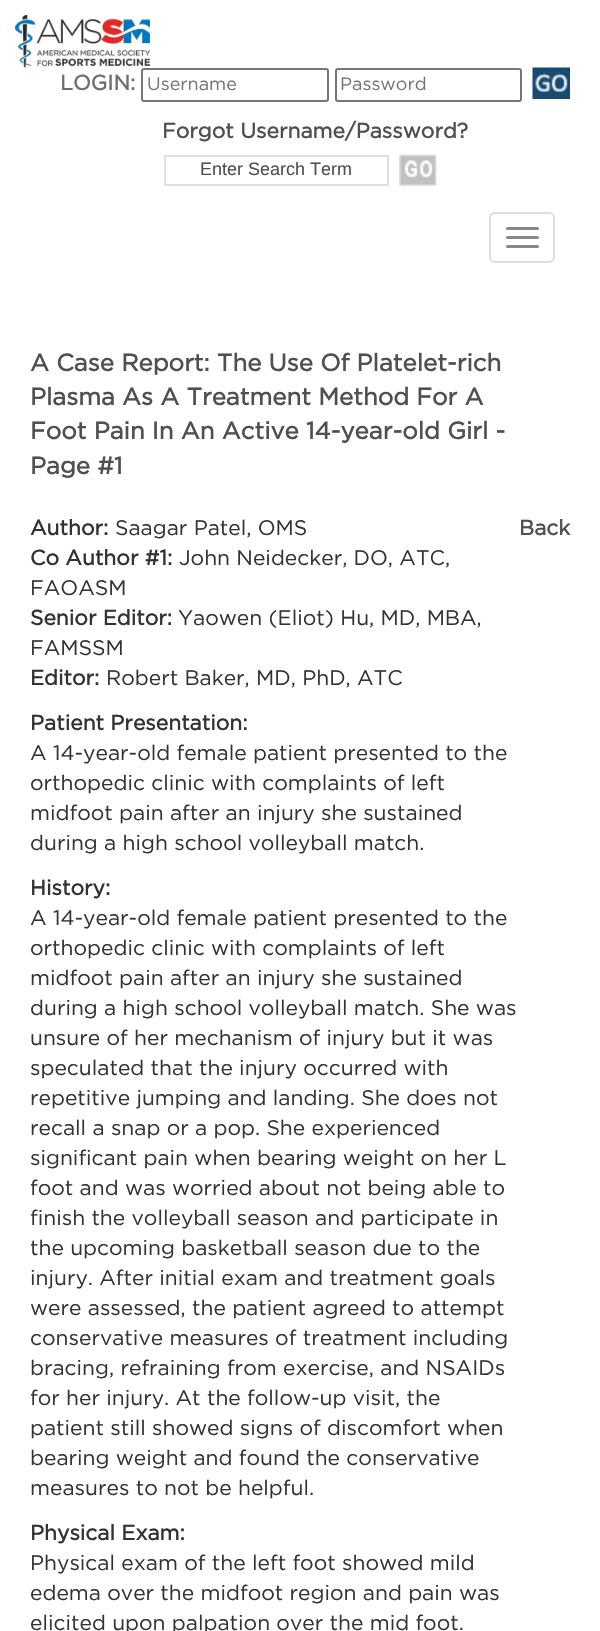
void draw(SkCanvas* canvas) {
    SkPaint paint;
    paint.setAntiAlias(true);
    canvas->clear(0xFFFFFFFF);
    canvas->drawImageRect(SkImages::DeferredFromEncodedData(SkData::MakeFromFileName("img1.png")), SkRect::MakeXYWH(15, 15, 135, 53), SkSamplingOptions());
    SkFont font1(fontMgr->matchFamilyStyle("Gotham", SkFontStyle::Bold()), 21);
    font1.setSubpixel(true);
    paint.setColor(0xFF726E6E);
    canvas->drawString("LOGIN:", 60, 90, font1, paint);
    paint.setStyle(SkPaint::kStroke_Style);
    paint.setStrokeWidth(2);
    paint.setColor(0xFF767676);
    canvas->drawRoundRect(SkRect::MakeXYWH(142, 69, 186, 32), 2, 2, paint);
    SkFont font2(fontMgr->matchFamilyStyle("Gotham", SkFontStyle::Normal()), 18);
    font2.setSubpixel(true);
    paint.setStyle(SkPaint::kFill_Style);
    paint.setColor(0xFF757575);
    canvas->drawString("Username", 147, 90, font2, paint);
    paint.setStyle(SkPaint::kStroke_Style);
    paint.setColor(0xFF767676);
    canvas->drawRoundRect(SkRect::MakeXYWH(336, 69, 185, 32), 2, 2, paint);
    paint.setStyle(SkPaint::kFill_Style);
    paint.setColor(0xFF757575);
    canvas->drawString("Password", 340, 90, font2, paint);
    canvas->drawImageRect(SkImages::DeferredFromEncodedData(SkData::MakeFromFileName("img2.png")), SkRect::MakeXYWH(532, 67, 38, 32), SkSamplingOptions());
    paint.setColor(0xFF505050);
    canvas->drawString("Forgot Username/Password?", 162, 138, font1, paint);
    paint.setStyle(SkPaint::kStroke_Style);
    paint.setColor(0xFFE0E0E0);
    canvas->drawRect(SkRect::MakeXYWH(165, 156, 223, 29), paint);
    SkFont font3(fontMgr->matchFamilyStyle("Liberation Sans", SkFontStyle::Normal()), 18);
    font3.setSubpixel(true);
    paint.setStyle(SkPaint::kFill_Style);
    paint.setColor(0xFF505050);
    canvas->drawString("Enter Search Term", 200, 175, font3, paint);
    canvas->drawImageRect(SkImages::DeferredFromEncodedData(SkData::MakeFromFileName("img3.png")), SkRect::MakeXYWH(399, 154, 38, 32), SkSamplingOptions());
    paint.setStyle(SkPaint::kStroke_Style);
    paint.setColor(0xFFDDDDDD);
    canvas->drawRoundRect(SkRect::MakeXYWH(490, 213, 64, 49), 5, 5, paint);
    paint.setStyle(SkPaint::kFill_Style);
    paint.setColor(0xFF888888);
    canvas->drawRoundRect(SkRect::MakeXYWH(506, 227, 33, 3), 1.5f, 1.5f, paint);
    canvas->drawRoundRect(SkRect::MakeXYWH(506, 236, 33, 3), 1.5f, 1.5f, paint);
    canvas->drawRoundRect(SkRect::MakeXYWH(506, 245, 33, 3), 1.5f, 1.5f, paint);
    SkFont font4(fontMgr->matchFamilyStyle("Gotham", SkFontStyle::Bold()), 24);
    font4.setSubpixel(true);
    paint.setColor(0xFF505050);
    canvas->drawString("A Case Report: The Use Of Platelet-rich", 30, 371, font4, paint);
    canvas->drawString("Plasma As A Treatment Method For A", 30, 405, font4, paint);
    canvas->drawString("Foot Pain In An Active 14-year-old Girl -", 30, 439, font4, paint);
    canvas->drawString("Page #1", 30, 474, font4, paint);
    paint.setColor(0xFF333333);
    canvas->drawString("Author:", 30, 535, font1, paint);
    SkFont font5(fontMgr->matchFamilyStyle("Gotham", SkFontStyle::Normal()), 21);
    font5.setSubpixel(true);
    canvas->drawString("Saagar Patel, OMS", 115, 535, font5, paint);
    canvas->drawString("Co Author #1:", 30, 565, font1, paint);
    canvas->drawString("John Neidecker, DO, ATC,", 179, 565, font5, paint);
    canvas->drawString("FAOASM", 30, 595, font5, paint);
    canvas->drawString("Senior Editor:", 30, 625, font1, paint);
    canvas->drawString("Yaowen (Eliot) Hu, MD, MBA,", 178, 625, font5, paint);
    canvas->drawString("FAMSSM", 30, 655, font5, paint);
    canvas->drawString("Editor:", 30, 685, font1, paint);
    canvas->drawString("Robert Baker, MD, PhD, ATC", 106, 685, font5, paint);
    canvas->drawString("Patient Presentation:", 30, 730, font1, paint);
    canvas->drawString("A 14-year-old female patient presented to the", 30, 760, font5, paint);
    canvas->drawString("orthopedic clinic with complaints of left", 30, 790, font5, paint);
    canvas->drawString("midfoot pain after an injury she sustained", 30, 820, font5, paint);
    canvas->drawString("during a high school volleyball match.", 30, 850, font5, paint);
    canvas->drawString("History:", 30, 895, font1, paint);
    canvas->drawString("A 14-year-old female patient presented to the", 30, 925, font5, paint);
    canvas->drawString("orthopedic clinic with complaints of left", 30, 955, font5, paint);
    canvas->drawString("midfoot pain after an injury she sustained", 30, 985, font5, paint);
    canvas->drawString("during a high school volleyball match. She was", 30, 1015, font5, paint);
    canvas->drawString("unsure of her mechanism of injury but it was", 30, 1045, font5, paint);
    canvas->drawString("speculated that the injury occurred with", 30, 1075, font5, paint);
    canvas->drawString("repetitive jumping and landing. She does not", 30, 1105, font5, paint);
    canvas->drawString("recall a snap or a pop. She experienced", 30, 1135, font5, paint);
    canvas->drawString("significant pain when bearing weight on her L", 30, 1165, font5, paint);
    canvas->drawString("foot and was worried about not being able to", 30, 1195, font5, paint);
    canvas->drawString("finish the volleyball season and participate in", 30, 1225, font5, paint);
    canvas->drawString("the upcoming basketball season due to the", 30, 1255, font5, paint);
    canvas->drawString("injury. After initial exam and treatment goals", 30, 1285, font5, paint);
    canvas->drawString("were assessed, the patient agreed to attempt", 30, 1315, font5, paint);
    canvas->drawString("conservative measures of treatment including", 30, 1345, font5, paint);
    canvas->drawString("bracing, refraining from exercise, and NSAIDs", 30, 1375, font5, paint);
    canvas->drawString("for her injury. At the follow-up visit, the", 30, 1405, font5, paint);
    canvas->drawString("patient still showed signs of discomfort when", 30, 1435, font5, paint);
    canvas->drawString("bearing weight and found the conservative", 30, 1465, font5, paint);
    canvas->drawString("measures to not be helpful.", 30, 1495, font5, paint);
    canvas->drawString("Physical Exam:", 30, 1540, font1, paint);
    canvas->drawString("Physical exam of the left foot showed mild", 30, 1570, font5, paint);
    canvas->drawString("edema over the midfoot region and pain was", 30, 1600, font5, paint);
    canvas->drawString("elicited upon palpation over the mid foot.", 30, 1630, font5, paint);
    paint.setColor(0xFF505050);
    canvas->drawString("Back", 519, 535, font1, paint);
}
